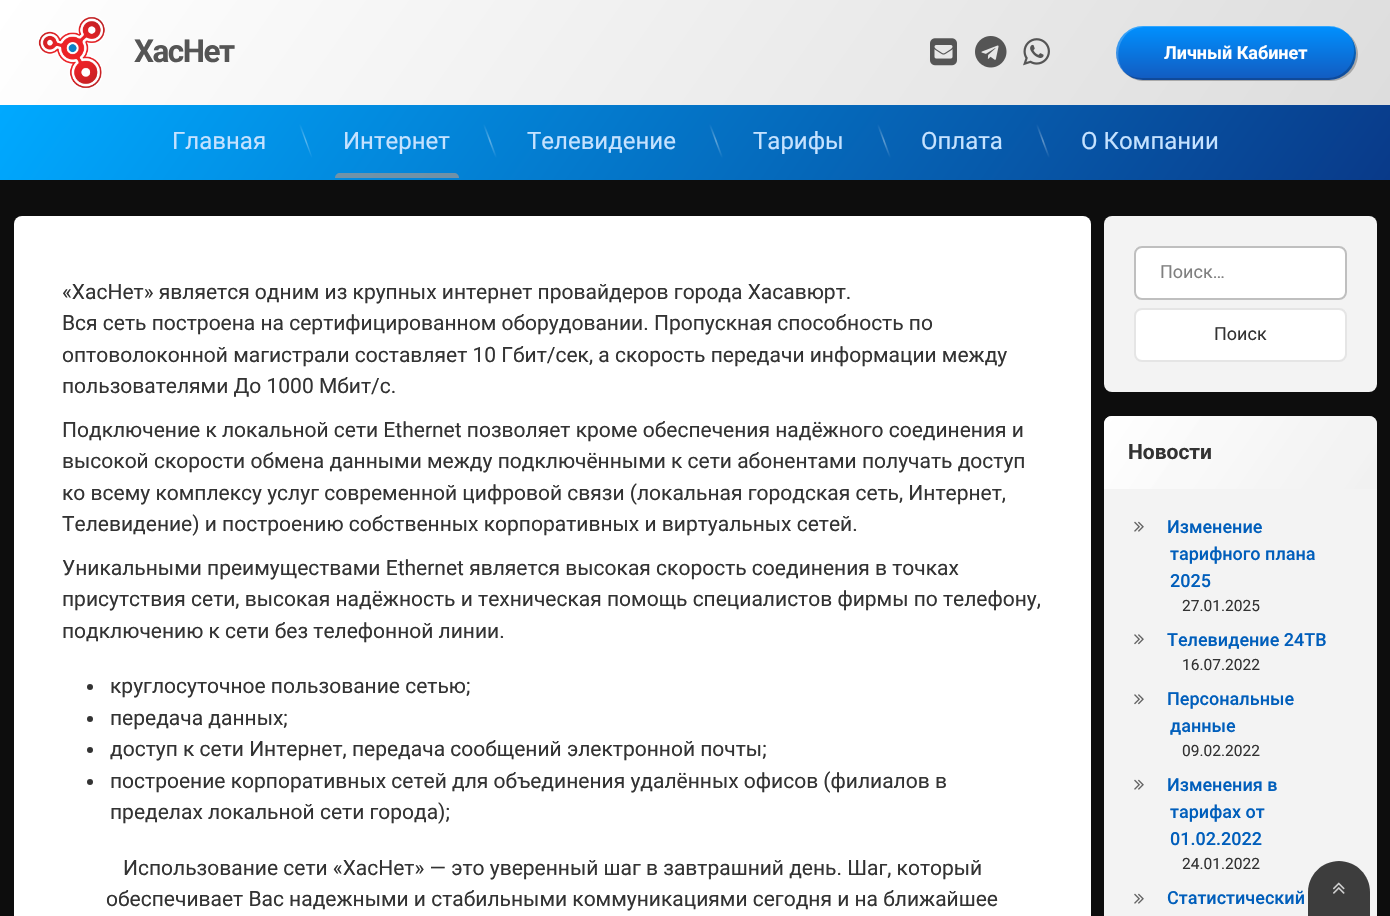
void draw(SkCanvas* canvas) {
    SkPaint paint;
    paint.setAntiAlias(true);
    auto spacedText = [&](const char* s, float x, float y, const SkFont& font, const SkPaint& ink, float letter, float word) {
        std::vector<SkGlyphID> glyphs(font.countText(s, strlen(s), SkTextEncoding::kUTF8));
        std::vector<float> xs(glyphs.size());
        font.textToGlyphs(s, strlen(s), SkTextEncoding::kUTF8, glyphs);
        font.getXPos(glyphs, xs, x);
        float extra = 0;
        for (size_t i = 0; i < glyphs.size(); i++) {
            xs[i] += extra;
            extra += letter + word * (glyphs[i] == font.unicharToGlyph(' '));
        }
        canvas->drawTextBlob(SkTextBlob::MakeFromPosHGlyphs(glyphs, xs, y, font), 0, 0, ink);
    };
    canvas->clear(0xFF0D0D0D);
    {
        const SkColor colors[] = {0xFFFFFFFF, 0xFFDDDDDD};
        const float stops[] = {0, 1};
        const SkPoint ends[] = {{204, -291}, {1186, 396}};
        paint.setShader(SkGradientShader::MakeLinear(ends, colors, stops, 2, SkTileMode::kClamp));
        paint.setAlpha(255);
    }
    canvas->drawRect(SkRect::MakeXYWH(0, 0, 1390, 105), paint);
    canvas->drawImageRect(SkImages::DeferredFromEncodedData(SkData::MakeFromFileName("img1.png")), SkRect::MakeXYWH(38, 17, 67, 71), SkSamplingOptions());
    SkFont font1(fontMgr->matchFamilyStyle("Roboto", SkFontStyle::Bold()), 31.5f);
    font1.setSubpixel(true);
    paint.setShader(nullptr);
    paint.setColor(0xFF555555);
    spacedText("ХасНет", 134, 62, font1, paint, -1.5f, 0);
    canvas->drawImageRect(SkImages::DeferredFromEncodedData(SkData::MakeFromFileName("img2.png")), SkRect::MakeXYWH(930, 38, 27, 28), SkSamplingOptions());
    canvas->drawImageRect(SkImages::DeferredFromEncodedData(SkData::MakeFromFileName("img3.png")), SkRect::MakeXYWH(975, 36, 32, 32), SkSamplingOptions());
    canvas->drawImageRect(SkImages::DeferredFromEncodedData(SkData::MakeFromFileName("img4.png")), SkRect::MakeXYWH(1023, 38, 27, 28), SkSamplingOptions());
    paint.setColor(0x40000000);
    canvas->drawPath(SkPathBuilder().moveTo(1128, 75).cubicTo(1132, 79, 1138, 81, 1145, 81).lineTo(1331, 81).cubicTo(1346, 81, 1358, 69, 1358, 54).cubicTo(1358, 45, 1353, 37, 1346, 32).cubicTo(1352, 37, 1356, 44, 1356, 52).cubicTo(1356, 67, 1344, 80, 1329, 80).lineTo(1143, 80).cubicTo(1137, 80, 1132, 78, 1128, 75).close().detach(), paint);
    {
        const SkColor colors[] = {0xFF135ABF, 0xFF0090FF};
        const float stops[] = {0, 1};
        const SkPoint ends[] = {{1236, 80}, {1236, 26}};
        paint.setShader(SkGradientShader::MakeLinear(ends, colors, stops, 2, SkTileMode::kClamp));
        paint.setAlpha(255);
    }
    canvas->drawRoundRect(SkRect::MakeXYWH(1116, 26, 240, 54), 27, 27, paint);
    paint.setShader(nullptr);
    paint.setColor(0x33000000);
    canvas->drawPath(SkPathBuilder().moveTo(1121, 69).cubicTo(1126, 76, 1134, 80, 1143, 80).lineTo(1329, 80).cubicTo(1344, 80, 1356, 68, 1356, 53).cubicTo(1356, 45, 1353, 39, 1348, 34).cubicTo(1352, 38, 1354, 44, 1354, 51).cubicTo(1354, 66, 1342, 78, 1328, 78).lineTo(1142, 78).cubicTo(1134, 78, 1126, 75, 1121, 69).close().detach(), paint);
    paint.setColor(0x33FFFFFF);
    canvas->drawPath(SkPathBuilder().moveTo(1144, 27).lineTo(1330, 27).cubicTo(1336, 27, 1341, 29, 1345, 32).cubicTo(1341, 28, 1335, 26, 1329, 26).lineTo(1143, 26).cubicTo(1128, 26, 1116, 38, 1116, 53).cubicTo(1116, 63, 1122, 72, 1130, 77).cubicTo(1109, 63, 1118, 27, 1144, 27).close().detach(), paint);
    SkFont font2(fontMgr->matchFamilyStyle("Roboto", SkFontStyle::Bold()), 18);
    font2.setSubpixel(true);
    paint.setColor(0xFFFFFFFF);
    canvas->drawString("Личный Кабинет", 1164, 59, font2, paint);
    {
        const SkColor colors[] = {0xFF00A9FF, 0xFF093A89};
        const float stops[] = {0, 1};
        const SkPoint ends[] = {{211, -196}, {1179, 481}};
        paint.setShader(SkGradientShader::MakeLinear(ends, colors, stops, 2, SkTileMode::kClamp));
        paint.setAlpha(255);
    }
    canvas->drawRect(SkRect::MakeXYWH(0, 105, 1390, 75), paint);
    SkFont font3(fontMgr->matchFamilyStyle("Roboto", SkFontStyle::Normal()), 24);
    font3.setSubpixel(true);
    paint.setShader(nullptr);
    paint.setColor(0xFFC5E2FF);
    canvas->drawString("Главная", 172, 149, font3, paint);
    {
        const SkColor colors[] = {0x00FFFFFF, 0x5CFFFFFF, 0x00FFFFFF};
        const float stops[] = {0, 0.5f, 1};
        const SkPoint ends[] = {{300, 124}, {312, 158}};
        paint.setShader(SkGradientShader::MakeLinear(ends, colors, stops, 3, SkTileMode::kClamp));
        paint.setAlpha(255);
    }
    canvas->drawPath(SkPathBuilder().moveTo(299, 124.5f).lineTo(300.5f, 124).lineTo(312.5f, 157.5f).lineTo(311.5f, 158).close().detach(), paint);
    paint.setShader(nullptr);
    paint.setColor(0xFFC5E2FF);
    canvas->drawString("Интернет", 343, 149, font3, paint);
    paint.setColor(0xBF969696);
    canvas->drawPath(SkPathBuilder().moveTo(340, 173).lineTo(454, 173).cubicTo(457, 173, 459, 175, 459, 178).lineTo(335, 178).cubicTo(335, 175, 337, 173, 340, 173).close().detach(), paint);
    {
        const SkColor colors[] = {0x00FFFFFF, 0x5CFFFFFF, 0x00FFFFFF};
        const float stops[] = {0, 0.5f, 1};
        const SkPoint ends[] = {{484, 124}, {496, 158}};
        paint.setShader(SkGradientShader::MakeLinear(ends, colors, stops, 3, SkTileMode::kClamp));
        paint.setAlpha(255);
    }
    canvas->drawPath(SkPathBuilder().moveTo(483, 124.5f).lineTo(484.5f, 124).lineTo(497, 157.5f).lineTo(495.5f, 158).close().detach(), paint);
    paint.setShader(nullptr);
    paint.setColor(0xFFC5E2FF);
    canvas->drawString("Телевидение", 527, 149, font3, paint);
    {
        const SkColor colors[] = {0x00FFFFFF, 0x5CFFFFFF, 0x00FFFFFF};
        const float stops[] = {0, 0.5f, 1};
        const SkPoint ends[] = {{710, 124}, {722, 158}};
        paint.setShader(SkGradientShader::MakeLinear(ends, colors, stops, 3, SkTileMode::kClamp));
        paint.setAlpha(255);
    }
    canvas->drawPath(SkPathBuilder().moveTo(709, 124.5f).lineTo(710.5f, 124).lineTo(723, 157.5f).lineTo(721.5f, 158).close().detach(), paint);
    paint.setShader(nullptr);
    paint.setColor(0xFFC5E2FF);
    canvas->drawString("Тарифы", 753, 149, font3, paint);
    {
        const SkColor colors[] = {0x00FFFFFF, 0x5CFFFFFF, 0x00FFFFFF};
        const float stops[] = {0, 0.5f, 1};
        const SkPoint ends[] = {{878, 124}, {890, 158}};
        paint.setShader(SkGradientShader::MakeLinear(ends, colors, stops, 3, SkTileMode::kClamp));
        paint.setAlpha(255);
    }
    canvas->drawPath(SkPathBuilder().moveTo(877, 124.5f).lineTo(878.5f, 124).lineTo(891, 157.5f).lineTo(889.5f, 158).close().detach(), paint);
    paint.setShader(nullptr);
    paint.setColor(0xFFC5E2FF);
    canvas->drawString("Оплата", 921, 149, font3, paint);
    {
        const SkColor colors[] = {0x00FFFFFF, 0x5CFFFFFF, 0x00FFFFFF};
        const float stops[] = {0, 0.5f, 1};
        const SkPoint ends[] = {{1037, 124}, {1049, 158}};
        paint.setShader(SkGradientShader::MakeLinear(ends, colors, stops, 3, SkTileMode::kClamp));
        paint.setAlpha(255);
    }
    canvas->drawPath(SkPathBuilder().moveTo(1036, 124.5f).lineTo(1037.5f, 124).lineTo(1050, 157.5f).lineTo(1048.5f, 158).close().detach(), paint);
    paint.setShader(nullptr);
    paint.setColor(0xFFC5E2FF);
    canvas->drawString("О Компании", 1081, 149, font3, paint);
    paint.setColor(0xFFFFFFFF);
    canvas->drawRoundRect(SkRect::MakeXYWH(14, 216, 1077, 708), 8, 8, paint);
    SkFont font4(fontMgr->matchFamilyStyle("Roboto", SkFontStyle::Normal()), 21);
    font4.setSubpixel(true);
    paint.setColor(0xFF333333);
    canvas->drawString("«ХасНет» является одним из крупных интернет провайдеров города Хасавюрт.", 62, 299, font4, paint);
    canvas->drawString("Вся cеть построена на сертифицированном оборудовании. Пропускная способность по", 62, 330, font4, paint);
    canvas->drawString("оптоволоконной магистрали составляет 10 Гбит/сек, а скорость передачи информации между", 62, 362, font4, paint);
    canvas->drawString("пользователями До 1000 Мбит/с.", 62, 393, font4, paint);
    canvas->drawString("Подключение к локальной сети Ethernet позволяет кроме обеспечения надёжного соединения и", 62, 437, font4, paint);
    canvas->drawString("высокой скорости обмена данными между подключёнными к сети абонентами получать доступ", 62, 468, font4, paint);
    canvas->drawString("ко всему комплексу услуг современной цифровой связи (локальная городская сеть, Интернет,", 62, 500, font4, paint);
    canvas->drawString("Телевидение) и построению собственных корпоративных и виртуальных сетей.", 62, 531, font4, paint);
    canvas->drawString("Уникальными преимуществами Ethernet является высокая скорость соединения в точках", 62, 575, font4, paint);
    canvas->drawString("присутствия сети, высокая надёжность и техническая помощь специалистов фирмы по телефону,", 62, 606, font4, paint);
    canvas->drawString("подключению к сети без телефонной линии.", 62, 638, font4, paint);
    canvas->drawCircle(90, 687, 3, paint);
    canvas->drawString("круглосуточное пользование сетью;", 110, 693, font4, paint);
    canvas->drawCircle(90, 719, 3, paint);
    canvas->drawString("передача данных;", 110, 725, font4, paint);
    canvas->drawCircle(90, 750, 3, paint);
    canvas->drawString("доступ к сети Интернет, передача сообщений электронной почты;", 110, 756, font4, paint);
    canvas->drawCircle(90, 782, 3, paint);
    canvas->drawString("построение корпоративных сетей для объединения удалённых офисов (филиалов в", 110, 788, font4, paint);
    canvas->drawString("пределах локальной сети города);", 110, 819, font4, paint);
    canvas->drawString("Использование сети «ХасНет» — это уверенный шаг в завтрашний день. Шаг, который", 123, 875, font4, paint);
    canvas->drawString("обеспечивает Вас надежными и стабильными коммуникациями сегодня и на ближайшее", 106, 906, font4, paint);
    paint.setColor(0xFFF3F3F3);
    canvas->drawRoundRect(SkRect::MakeXYWH(1104, 216, 273, 176), 8, 8, paint);
    paint.setColor(0xFFFFFFFF);
    canvas->drawRoundRect(SkRect::MakeXYWH(1134, 246, 213, 54), 8, 8, paint);
    paint.setStyle(SkPaint::kStroke_Style);
    paint.setStrokeWidth(2);
    paint.setColor(0x40000000);
    canvas->drawRoundRect(SkRect::MakeXYWH(1135, 247, 211, 52), 7, 7, paint);
    SkFont font5(fontMgr->matchFamilyStyle("Roboto", SkFontStyle::Normal()), 18);
    font5.setSubpixel(true);
    paint.setStyle(SkPaint::kFill_Style);
    paint.setColor(0xFF808080);
    canvas->drawString("Поиск…", 1160, 278, font5, paint);
    paint.setColor(0xFFFFFFFF);
    canvas->drawRoundRect(SkRect::MakeXYWH(1134, 308, 213, 54), 8, 8, paint);
    paint.setStyle(SkPaint::kStroke_Style);
    paint.setColor(0x1A000000);
    canvas->drawRoundRect(SkRect::MakeXYWH(1135, 309, 211, 52), 7, 7, paint);
    paint.setStyle(SkPaint::kFill_Style);
    paint.setColor(0xFF333333);
    canvas->drawString("Поиск", 1214, 340, font5, paint);
    paint.setColor(0xFFF3F3F3);
    canvas->drawRoundRect(SkRect::MakeXYWH(1104, 416, 273, 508), 8, 8, paint);
    {
        const SkColor colors[] = {0xFFFFFFFF, 0xBFF0F0F0};
        const float stops[] = {0, 1};
        const SkPoint ends[] = {{1132, 376}, {1349, 528}};
        paint.setShader(SkGradientShader::MakeLinear(ends, colors, stops, 2, SkTileMode::kClamp));
        paint.setAlpha(255);
    }
    canvas->drawPath(SkPathBuilder().moveTo(1112, 416).lineTo(1369, 416).cubicTo(1373.5f, 416, 1377, 419.5f, 1377, 424).lineTo(1377, 489).lineTo(1104, 489).lineTo(1104, 424).cubicTo(1104, 419.5f, 1107.5f, 416, 1112, 416).close().detach(), paint);
    SkFont font6(fontMgr->matchFamilyStyle("Roboto", SkFontStyle::Bold()), 21);
    font6.setSubpixel(true);
    paint.setShader(nullptr);
    paint.setColor(0xFF333333);
    canvas->drawString("Новости", 1128, 459, font6, paint);
    canvas->drawImageRect(SkImages::DeferredFromEncodedData(SkData::MakeFromFileName("img5.png")), SkRect::MakeXYWH(1134, 521, 10, 11), SkSamplingOptions());
    SkFont font7(fontMgr->matchFamilyStyle("Roboto", SkFontStyle(500, SkFontStyle::kNormal_Width, SkFontStyle::kUpright_Slant)), 18);
    font7.setSubpixel(true);
    paint.setColor(0xFF005EBB);
    canvas->drawString("Изменение", 1167, 533, font7, paint);
    canvas->drawString("тарифного плана", 1170, 560, font7, paint);
    canvas->drawString("2025", 1170, 587, font7, paint);
    SkFont font8(fontMgr->matchFamilyStyle("Roboto", SkFontStyle::Normal()), 15.5f);
    font8.setSubpixel(true);
    paint.setColor(0xFF333333);
    canvas->drawString("27.01.2025", 1182, 611, font8, paint);
    canvas->drawImageRect(SkImages::DeferredFromEncodedData(SkData::MakeFromFileName("img6.png")), SkRect::MakeXYWH(1134, 634, 10, 11), SkSamplingOptions());
    paint.setColor(0xFF005EBB);
    canvas->drawString("Телевидение 24ТВ", 1167, 646, font7, paint);
    paint.setColor(0xFF333333);
    canvas->drawString("16.07.2022", 1182, 670, font8, paint);
    canvas->drawImageRect(SkImages::DeferredFromEncodedData(SkData::MakeFromFileName("img6.png")), SkRect::MakeXYWH(1134, 694, 10, 11), SkSamplingOptions());
    paint.setColor(0xFF005EBB);
    canvas->drawString("Персональные", 1167, 705, font7, paint);
    canvas->drawString("данные", 1170, 732, font7, paint);
    paint.setColor(0xFF333333);
    canvas->drawString("09.02.2022", 1182, 756, font8, paint);
    canvas->drawImageRect(SkImages::DeferredFromEncodedData(SkData::MakeFromFileName("img5.png")), SkRect::MakeXYWH(1134, 779, 10, 11), SkSamplingOptions());
    paint.setColor(0xFF005EBB);
    canvas->drawString("Изменения в", 1167, 791, font7, paint);
    canvas->drawString("тарифах от", 1170, 818, font7, paint);
    canvas->drawString("01.02.2022", 1170, 845, font7, paint);
    paint.setColor(0xFF333333);
    canvas->drawString("24.01.2022", 1182, 869, font8, paint);
    canvas->drawImageRect(SkImages::DeferredFromEncodedData(SkData::MakeFromFileName("img5.png")), SkRect::MakeXYWH(1134, 893, 10, 11), SkSamplingOptions());
    paint.setColor(0xFF005EBB);
    canvas->drawString("Статистический", 1167, 904, font7, paint);
    paint.setColor(0xBF000000);
    canvas->drawPath(SkPathBuilder().moveTo(1339, 861).cubicTo(1356, 861, 1370, 875, 1370, 892).lineTo(1370, 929).lineTo(1308, 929).lineTo(1308, 892).cubicTo(1308, 875, 1322, 861, 1339, 861).close().detach(), paint);
    canvas->drawImageRect(SkImages::DeferredFromEncodedData(SkData::MakeFromFileName("img7.png")), SkRect::MakeXYWH(1333, 882, 12, 12), SkSamplingOptions());
}
